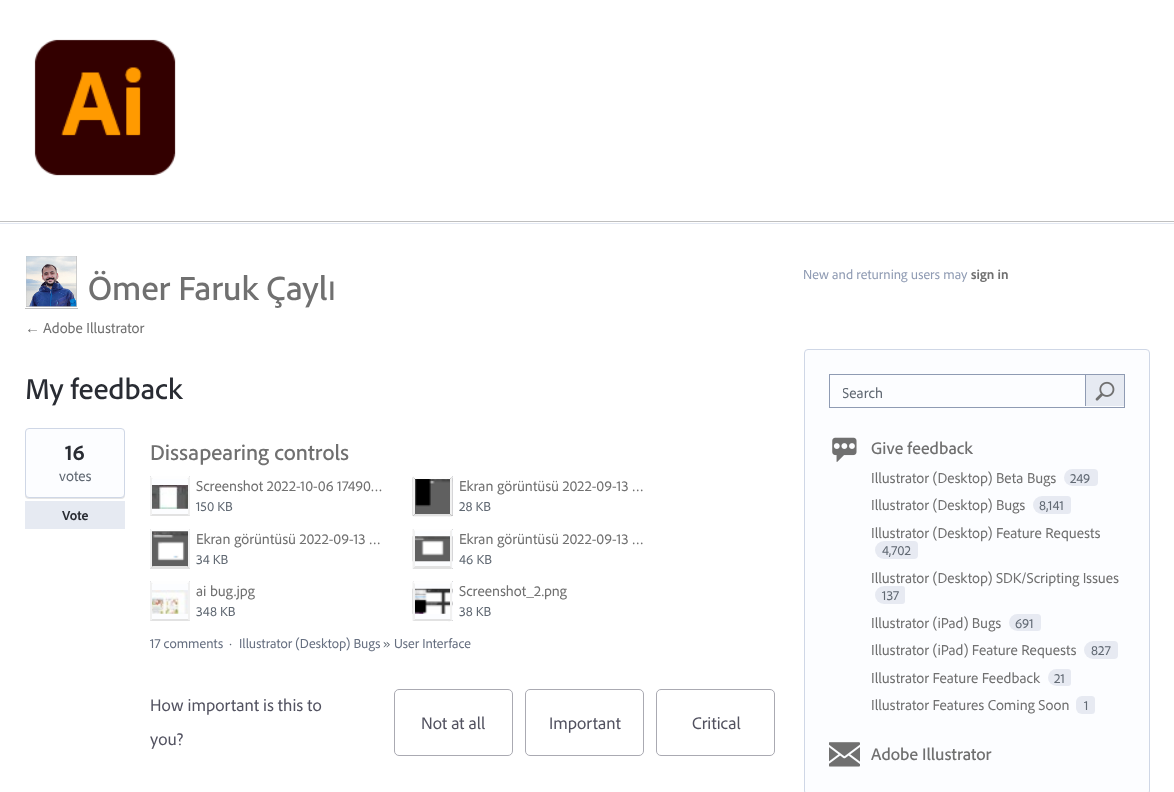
<!DOCTYPE html>
<meta charset="utf-8">
<style>body { margin: 0 } canvas { display: block }</style>
<canvas id="canvas" width="1174" height="792"></canvas>
<img id="img1" src="images/1.png" hidden>
<img id="img2" src="images/2.png" hidden>
<img id="img3" src="images/3.png" hidden>
<img id="img4" src="images/4.png" hidden>
<img id="img5" src="images/5.png" hidden>
<img id="img6" src="images/6.png" hidden>
<img id="img7" src="images/7.png" hidden>
<img id="img8" src="images/8.png" hidden>
<img id="img9" src="images/9.png" hidden>
<img id="img10" src="images/10.png" hidden>
<img id="img11" src="images/11.png" hidden>
<script>
window.onload = function () {
    const canvas = document.getElementById('canvas');
    const context = canvas.getContext('2d');
    context.miterLimit = 4;
    context.fontKerning = 'normal';

    context.fillStyle = 'rgb(255, 255, 255)';
    context.fillRect(0, 0, 1174, 792);
    context.fillStyle = 'rgb(191, 191, 191)';
    context.fillRect(0, 221, 1174, 1);
    context.drawImage(document.getElementById('img1'), 34, 39, 142, 137);
    context.fillStyle = 'rgb(227, 232, 242)';
    context.fillRect(0, 223, 1174, 1);
    context.fillStyle = 'rgba(0, 0, 0, 0.25)';
    context.filter = 'blur(0.5px)';
    context.beginPath();
    context.rect(25, 256, 53, 53);
    context.fill();
    context.filter = 'none';
    context.strokeStyle = 'rgb(255, 255, 255)';
    context.strokeRect(25.5, 255.5, 52, 52);
    context.drawImage(document.getElementById('img2'), 26, 256, 51, 51);
    context.fillStyle = 'rgba(0, 0, 0, 0.1)';
    context.filter = 'blur(0.5px)';
    context.beginPath();
    context.roundRect(25, 429, 100, 70, 4);
    context.fill();
    context.filter = 'none';
    context.fillStyle = 'rgb(252, 253, 255)';
    context.beginPath();
    context.roundRect(25.5, 428.5, 99, 69, 3.5);
    context.fill();
    context.strokeStyle = 'rgb(207, 215, 230)';
    context.stroke();
    context.fillStyle = 'rgb(230, 234, 242)';
    context.fillRect(25, 501, 100, 28);
    context.fillStyle = 'rgba(0, 0, 0, 0.75)';
    context.filter = 'blur(0.5px)';
    context.beginPath();
    context.roundRect(150, 476, 40, 40, 1);
    context.fill();
    context.filter = 'none';
    context.fillStyle = 'rgb(252, 253, 255)';
    context.beginPath();
    context.roundRect(150, 476, 40, 40, 1);
    context.fill();
    context.drawImage(document.getElementById('img3'), 152, 485, 36, 24);
    context.fillStyle = 'rgb(254, 254, 254)';
    context.beginPath();
    context.moveTo(150.5, 476.5);
    context.lineTo(151, 476);
    context.lineTo(189, 476);
    context.lineTo(189.5, 476.5);
    context.lineTo(187, 479);
    context.lineTo(153, 479);
    context.closePath();
    context.fill();
    context.fillStyle = 'rgb(241, 241, 241)';
    context.beginPath();
    context.moveTo(190, 515);
    context.lineTo(190, 478);
    context.lineTo(189.5, 476.5);
    context.lineTo(187, 479);
    context.lineTo(188, 479);
    context.lineTo(188, 514);
    context.lineTo(189.5, 516);
    context.closePath();
    context.fill();
    context.fillStyle = 'rgb(226, 226, 226)';
    context.beginPath();
    context.moveTo(189.5, 516);
    context.lineTo(150.5, 516);
    context.lineTo(152, 514);
    context.lineTo(188, 514);
    context.closePath();
    context.fill();
    context.fillStyle = 'rgb(241, 241, 241)';
    context.beginPath();
    context.moveTo(152, 479);
    context.lineTo(153, 479);
    context.lineTo(150.5, 476.5);
    context.lineTo(150, 478);
    context.lineTo(150, 515);
    context.bezierCurveTo(150, 515.5, 150, 515.5, 150.5, 516);
    context.lineTo(152, 514);
    context.closePath();
    context.fill();
    context.fillStyle = 'rgba(0, 0, 0, 0.75)';
    context.filter = 'blur(0.5px)';
    context.beginPath();
    context.roundRect(413, 476, 40, 40, 1);
    context.fill();
    context.filter = 'none';
    context.fillStyle = 'rgb(252, 253, 255)';
    context.beginPath();
    context.roundRect(413, 476, 40, 40, 1);
    context.fill();
    context.drawImage(document.getElementById('img4'), 412, 477, 41, 40);
    context.fillStyle = 'rgb(254, 254, 254)';
    context.beginPath();
    context.moveTo(413, 476.5);
    context.lineTo(413, 476);
    context.lineTo(451.5, 476);
    context.lineTo(452, 477);
    context.lineTo(450, 479);
    context.lineTo(415, 479);
    context.closePath();
    context.fill();
    context.fillStyle = 'rgb(241, 241, 241)';
    context.beginPath();
    context.moveTo(452, 477);
    context.lineTo(452, 515.5);
    context.lineTo(450, 514);
    context.lineTo(450, 479);
    context.closePath();
    context.fill();
    context.fillStyle = 'rgb(226, 226, 226)';
    context.beginPath();
    context.moveTo(452, 515.5);
    context.bezierCurveTo(452, 516.5, 449, 516, 438.5, 516);
    context.lineTo(413, 516);
    context.lineTo(415, 514);
    context.lineTo(450, 514);
    context.closePath();
    context.fill();
    context.fillStyle = 'rgb(241, 241, 241)';
    context.beginPath();
    context.moveTo(415, 479);
    context.lineTo(415, 514);
    context.lineTo(413, 516);
    context.lineTo(412.5, 516);
    context.lineTo(412.5, 477);
    context.lineTo(413, 476.5);
    context.closePath();
    context.fill();
    context.fillStyle = 'rgba(0, 0, 0, 0.75)';
    context.filter = 'blur(0.5px)';
    context.beginPath();
    context.roundRect(150, 529, 40, 40, 1);
    context.fill();
    context.filter = 'none';
    context.fillStyle = 'rgb(252, 253, 255)';
    context.beginPath();
    context.roundRect(150, 529, 40, 40, 1);
    context.fill();
    context.drawImage(document.getElementById('img5'), 151, 531, 38, 37);
    context.fillStyle = 'rgb(254, 254, 254)';
    context.beginPath();
    context.moveTo(151, 529);
    context.lineTo(150.5, 529);
    context.lineTo(152, 531);
    context.lineTo(188, 531);
    context.lineTo(189.5, 529);
    context.lineTo(189, 529);
    context.closePath();
    context.fill();
    context.fillStyle = 'rgb(241, 241, 241)';
    context.beginPath();
    context.moveTo(189.5, 529);
    context.lineTo(190, 530);
    context.lineTo(190, 568);
    context.lineTo(189.5, 568.5);
    context.lineTo(187, 566);
    context.lineTo(188, 566);
    context.lineTo(188, 531);
    context.closePath();
    context.fill();
    context.fillStyle = 'rgb(226, 226, 226)';
    context.beginPath();
    context.moveTo(151, 569);
    context.lineTo(150.5, 568.5);
    context.lineTo(153, 566);
    context.lineTo(187, 566);
    context.lineTo(189.5, 568.5);
    context.lineTo(189, 569);
    context.closePath();
    context.fill();
    context.fillStyle = 'rgb(241, 241, 241)';
    context.beginPath();
    context.moveTo(152, 531);
    context.lineTo(150.5, 529);
    context.lineTo(150, 530);
    context.lineTo(150, 568);
    context.lineTo(150.5, 568.5);
    context.lineTo(153, 566);
    context.lineTo(152, 566);
    context.closePath();
    context.fill();
    context.fillStyle = 'rgba(0, 0, 0, 0.75)';
    context.filter = 'blur(0.5px)';
    context.beginPath();
    context.roundRect(413, 529, 40, 40, 1);
    context.fill();
    context.filter = 'none';
    context.fillStyle = 'rgb(252, 253, 255)';
    context.beginPath();
    context.roundRect(413, 529, 40, 40, 1);
    context.fill();
    context.drawImage(document.getElementById('img6'), 412, 536, 41, 26);
    context.fillStyle = 'rgb(254, 254, 254)';
    context.beginPath();
    context.moveTo(414, 529);
    context.lineTo(413, 529);
    context.lineTo(415, 531);
    context.lineTo(450, 531);
    context.lineTo(452, 529.5);
    context.lineTo(451, 529);
    context.closePath();
    context.fill();
    context.fillStyle = 'rgb(241, 241, 241)';
    context.beginPath();
    context.moveTo(452, 568);
    context.lineTo(452, 529.5);
    context.lineTo(450, 531);
    context.lineTo(450, 566);
    context.closePath();
    context.fill();
    context.fillStyle = 'rgb(226, 226, 226)';
    context.beginPath();
    context.moveTo(413, 569);
    context.lineTo(412.5, 568.5);
    context.lineTo(415, 566);
    context.lineTo(450, 566);
    context.lineTo(452, 568);
    context.lineTo(451.5, 569);
    context.closePath();
    context.fill();
    context.fillStyle = 'rgb(241, 241, 241)';
    context.beginPath();
    context.moveTo(412.5, 529);
    context.lineTo(413, 529);
    context.lineTo(415, 531);
    context.lineTo(415, 566);
    context.lineTo(412.5, 568.5);
    context.closePath();
    context.fill();
    context.fillStyle = 'rgba(0, 0, 0, 0.75)';
    context.filter = 'blur(0.5px)';
    context.beginPath();
    context.roundRect(150, 581, 40, 40, 1);
    context.fill();
    context.filter = 'none';
    context.fillStyle = 'rgb(252, 253, 255)';
    context.beginPath();
    context.roundRect(150, 581, 40, 40, 1);
    context.fill();
    context.drawImage(document.getElementById('img7'), 152, 590, 36, 24);
    context.fillStyle = 'rgb(254, 254, 254)';
    context.beginPath();
    context.moveTo(150.5, 581.5);
    context.lineTo(151, 581);
    context.lineTo(189, 581);
    context.lineTo(189.5, 581.5);
    context.lineTo(187, 584);
    context.lineTo(153, 584);
    context.closePath();
    context.fill();
    context.fillStyle = 'rgb(241, 241, 241)';
    context.beginPath();
    context.moveTo(190, 620);
    context.lineTo(190, 582);
    context.lineTo(189.5, 581.5);
    context.lineTo(187, 584);
    context.lineTo(188, 584);
    context.lineTo(188, 619);
    context.lineTo(189.5, 621);
    context.closePath();
    context.fill();
    context.fillStyle = 'rgb(226, 226, 226)';
    context.beginPath();
    context.moveTo(189.5, 621);
    context.lineTo(150.5, 621);
    context.lineTo(152, 619);
    context.lineTo(188, 619);
    context.closePath();
    context.fill();
    context.fillStyle = 'rgb(241, 241, 241)';
    context.beginPath();
    context.moveTo(152, 584);
    context.lineTo(153, 584);
    context.lineTo(150.5, 581.5);
    context.lineTo(150, 582);
    context.lineTo(150, 620);
    context.lineTo(150.5, 621);
    context.lineTo(152, 619);
    context.closePath();
    context.fill();
    context.fillStyle = 'rgba(0, 0, 0, 0.75)';
    context.filter = 'blur(0.5px)';
    context.beginPath();
    context.roundRect(413, 581, 40, 40, 1);
    context.fill();
    context.filter = 'none';
    context.fillStyle = 'rgb(252, 253, 255)';
    context.beginPath();
    context.roundRect(413, 581, 40, 40, 1);
    context.fill();
    context.drawImage(document.getElementById('img8'), 412, 588, 41, 26);
    context.fillStyle = 'rgb(254, 254, 254)';
    context.beginPath();
    context.moveTo(412.5, 581.5);
    context.lineTo(451.5, 581);
    context.lineTo(452, 582);
    context.lineTo(450, 584);
    context.lineTo(415, 584);
    context.closePath();
    context.fill();
    context.fillStyle = 'rgb(241, 241, 241)';
    context.beginPath();
    context.moveTo(452, 582);
    context.lineTo(452, 620.5);
    context.lineTo(450, 619);
    context.lineTo(450, 584);
    context.closePath();
    context.fill();
    context.fillStyle = 'rgb(226, 226, 226)';
    context.beginPath();
    context.moveTo(452, 620.5);
    context.bezierCurveTo(452, 621.5, 449, 621, 438.5, 621);
    context.lineTo(413, 621);
    context.lineTo(415, 619);
    context.lineTo(450, 619);
    context.closePath();
    context.fill();
    context.fillStyle = 'rgb(241, 241, 241)';
    context.beginPath();
    context.moveTo(415, 584);
    context.lineTo(415, 619);
    context.lineTo(413, 621);
    context.lineTo(412.5, 621);
    context.lineTo(412.5, 581.5);
    context.closePath();
    context.fill();
    context.beginPath();
    context.roundRect(394.5, 689.5, 118, 66, 4.5);
    context.strokeStyle = 'rgb(170, 170, 178)';
    context.stroke();
    context.beginPath();
    context.roundRect(525.5, 689.5, 118, 66, 4.5);
    context.stroke();
    context.beginPath();
    context.roundRect(656.5, 689.5, 118, 66, 4.5);
    context.stroke();
    context.fillStyle = 'rgb(252, 253, 255)';
    context.beginPath();
    context.roundRect(804.5, 349.5, 345, 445, 3.5);
    context.fill();
    context.strokeStyle = 'rgb(207, 215, 230)';
    context.stroke();
    context.strokeStyle = 'rgb(143, 155, 179)';
    context.strokeRect(829.5, 374.5, 295, 33);
    context.fillStyle = 'rgb(230, 234, 242)';
    context.fillRect(1086, 375, 38, 31);
    context.fillStyle = 'rgb(143, 155, 179)';
    context.fillRect(1085, 375, 1, 31);
    context.drawImage(document.getElementById('img9'), 1095, 381, 20, 20);
    context.drawImage(document.getElementById('img10'), 832, 437, 25, 25);
    context.fillStyle = 'rgb(231, 234, 242)';
    context.beginPath();
    context.roundRect(1064, 469, 26, 17, [8.5, 0, 0, 8.5]);
    context.fill();
    context.beginPath();
    context.roundRect(1090, 469, 8, 17, [0, 4, 4, 0]);
    context.fill();
    context.beginPath();
    context.roundRect(1033, 496, 31, 18, [9, 0, 0, 9]);
    context.fill();
    context.beginPath();
    context.roundRect(1064, 496, 7, 18, [0, 3.5, 3.5, 0]);
    context.fill();
    context.beginPath();
    context.roundRect(1009, 614, 25, 17, [8.5, 0, 0, 8.5]);
    context.fill();
    context.beginPath();
    context.roundRect(1034, 614, 7, 17, [0, 3.5, 3.5, 0]);
    context.fill();
    context.beginPath();
    context.roundRect(1084, 641, 26, 18, [9, 0, 0, 9]);
    context.fill();
    context.beginPath();
    context.roundRect(1110, 641, 8, 18, [0, 4, 4, 0]);
    context.fill();
    context.beginPath();
    context.roundRect(1048, 669, 17, 17, [8.5, 0, 0, 8.5]);
    context.fill();
    context.beginPath();
    context.roundRect(1065, 669, 6, 17, [0, 3, 3, 0]);
    context.fill();
    context.beginPath();
    context.roundRect(1076, 696, 12, 18, [6, 0, 0, 6]);
    context.fill();
    context.beginPath();
    context.roundRect(1088, 696, 7, 18, [0, 3.5, 3.5, 0]);
    context.fill();
    context.drawImage(document.getElementById('img11'), 829, 742, 31, 25);
    context.font = '500 35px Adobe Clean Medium';
    context.fillStyle = 'rgb(112, 112, 112)';
    context.fillText('Ömer Faruk Çayl', 88, 300);
    context.font = '35px Liberation Sans';
    context.fillText('ı', 327, 300);
    context.font = '15px Liberation Sans';
    context.fillText('←', 25, 333);
    context.font = '15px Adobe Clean';
    context.fillText('Adobe Illustrator', 43, 333);
    context.font = '500 30px Adobe Clean Medium';
    context.fillStyle = 'rgb(41, 44, 51)';
    context.fillText('My feedback', 25, 399);
    context.font = 'bold 22.5px Adobe Clean';
    context.fillText('16', 65, 460);
    context.font = '15px Adobe Clean';
    context.fillStyle = 'rgb(97, 105, 115)';
    context.fillText('votes', 59, 481);
    context.font = 'bold 13.75px Adobe Clean';
    context.fillStyle = 'rgb(41, 44, 51)';
    context.fillText('Vote', 62, 520);
    context.font = '500 22.5px Adobe Clean Medium';
    context.fillStyle = 'rgb(112, 112, 112)';
    context.fillText('Dissapearing controls', 150, 460);
    context.font = '15px Adobe Clean';
    context.fillText('Screenshot 2022-10-06 17490…', 196, 491);
    context.font = '13.75px Adobe Clean';
    context.fillStyle = 'rgb(97, 105, 115)';
    context.fillText('150 KB', 196, 511);
    context.font = '15px Adobe Clean';
    context.fillStyle = 'rgb(112, 112, 112)';
    context.fillText('Ekran görüntüsü 2022-09-13 …', 459, 491);
    context.font = '13.75px Adobe Clean';
    context.fillStyle = 'rgb(97, 105, 115)';
    context.fillText('28 KB', 459, 511);
    context.font = '15px Adobe Clean';
    context.fillStyle = 'rgb(112, 112, 112)';
    context.fillText('Ekran görüntüsü 2022-09-13 …', 196, 544);
    context.font = '13.75px Adobe Clean';
    context.fillStyle = 'rgb(97, 105, 115)';
    context.fillText('34 KB', 196, 564);
    context.font = '15px Adobe Clean';
    context.fillStyle = 'rgb(112, 112, 112)';
    context.fillText('Ekran görüntüsü 2022-09-13 …', 459, 544);
    context.font = '13.75px Adobe Clean';
    context.fillStyle = 'rgb(97, 105, 115)';
    context.fillText('46 KB', 459, 564);
    context.font = '15px Adobe Clean';
    context.fillStyle = 'rgb(112, 112, 112)';
    context.fillText('ai bug.jpg', 196, 596);
    context.font = '13.75px Adobe Clean';
    context.fillStyle = 'rgb(97, 105, 115)';
    context.fillText('348 KB', 196, 616);
    context.font = '15px Adobe Clean';
    context.fillStyle = 'rgb(112, 112, 112)';
    context.fillText('Screenshot_2.png', 459, 596);
    context.font = '13.75px Adobe Clean';
    context.fillStyle = 'rgb(97, 105, 115)';
    context.fillText('38 KB', 459, 616);
    context.fillStyle = 'rgb(102, 111, 128)';
    context.fillText('17 comments', 150, 648);
    context.fillStyle = 'rgb(97, 105, 115)';
    context.fillText('·', 229, 648);
    context.fillStyle = 'rgb(102, 111, 128)';
    context.fillText('Illustrator (Desktop) Bugs', 239, 648);
    context.fillStyle = 'rgb(97, 105, 115)';
    context.fillText('»', 383, 648);
    context.fillStyle = 'rgb(102, 111, 128)';
    context.fillText('User Interface', 394, 648);
    context.font = '17.5px Adobe Clean';
    context.fillStyle = 'rgb(82, 82, 96)';
    context.fillText('How important is this to', 150, 711);
    context.fillText('you?', 150, 745);
    context.fillText('Not at all', 421, 729);
    context.fillText('Important', 549, 729);
    context.fillText('Critical', 692, 729);
    context.font = '13.75px Adobe Clean';
    context.fillStyle = 'rgb(143, 155, 179)';
    context.fillText('New and returning users may', 803, 279);
    context.font = 'bold 13.75px Adobe Clean';
    context.fillStyle = 'rgb(112, 112, 112)';
    context.fillText('sign in', 971, 279);
    context.save();
    context.beginPath();
    context.rect(843, 383, 206, 17);
    context.clip();
    context.font = '15px Adobe Clean';
    context.fillStyle = 'rgb(97, 105, 115)';
    context.fillText('Search', 842, 398);
    context.restore();
    context.font = '500 17.5px Adobe Clean Medium';
    context.fillText('Give feedback', 871, 454);
    context.font = '15px Adobe Clean';
    context.fillText('Illustrator (Desktop) Beta Bugs', 871, 483);
    context.font = '13.75px Adobe Clean';
    context.fillStyle = 'rgb(97, 105, 115)';
    context.fillText('249', 1070, 483);
    context.font = '15px Adobe Clean';
    context.fillStyle = 'rgb(112, 112, 112)';
    context.fillText('Illustrator (Desktop) Bugs', 871, 510);
    context.font = '13.75px Adobe Clean';
    context.fillStyle = 'rgb(97, 105, 115)';
    context.fillText('8,141', 1039, 510);
    context.font = '15px Adobe Clean';
    context.fillStyle = 'rgb(112, 112, 112)';
    context.fillText('Illustrator (Desktop) Feature Requests', 871, 538);
    context.fillStyle = 'rgb(231, 234, 242)';
    context.beginPath();
    context.roundRect(875, 541, 35, 18, [9, 0, 0, 9]);
    context.fill();
    context.beginPath();
    context.roundRect(910, 541, 8, 18, [0, 4, 4, 0]);
    context.fill();
    context.font = '13.75px Adobe Clean';
    context.fillStyle = 'rgb(97, 105, 115)';
    context.fillText('4,702', 882, 555);
    context.font = '15px Adobe Clean';
    context.fillStyle = 'rgb(112, 112, 112)';
    context.fillText('Illustrator (Desktop) SDK/Scripting Issues', 871, 583);
    context.fillStyle = 'rgb(231, 234, 242)';
    context.beginPath();
    context.roundRect(875, 586, 24, 18, [9, 0, 0, 9]);
    context.fill();
    context.font = '13.75px Adobe Clean';
    context.fillStyle = 'rgb(97, 105, 115)';
    context.fillText('137', 882, 600);
    context.fillStyle = 'rgb(231, 234, 242)';
    context.beginPath();
    context.roundRect(899, 586, 6, 18, [0, 3, 3, 0]);
    context.fill();
    context.font = '15px Adobe Clean';
    context.fillStyle = 'rgb(112, 112, 112)';
    context.fillText('Illustrator (iPad) Bugs', 871, 628);
    context.font = '13.75px Adobe Clean';
    context.fillStyle = 'rgb(97, 105, 115)';
    context.fillText('691', 1015, 628);
    context.font = '15px Adobe Clean';
    context.fillStyle = 'rgb(112, 112, 112)';
    context.fillText('Illustrator (iPad) Feature Requests', 871, 655);
    context.font = '13.75px Adobe Clean';
    context.fillStyle = 'rgb(97, 105, 115)';
    context.fillText('827', 1091, 655);
    context.font = '15px Adobe Clean';
    context.fillStyle = 'rgb(112, 112, 112)';
    context.fillText('Illustrator Feature Feedback', 871, 683);
    context.font = '13.75px Adobe Clean';
    context.fillStyle = 'rgb(97, 105, 115)';
    context.fillText('21', 1054, 683);
    context.font = '15px Adobe Clean';
    context.fillStyle = 'rgb(112, 112, 112)';
    context.fillText('Illustrator Features Coming Soon', 871, 710);
    context.font = '13.75px Adobe Clean';
    context.fillStyle = 'rgb(97, 105, 115)';
    context.fillText('1', 1084, 710);
    context.font = '500 17.5px Adobe Clean Medium';
    context.fillStyle = 'rgb(112, 112, 112)';
    context.fillText('Adobe Illustrator', 871, 760);
};
</script>
